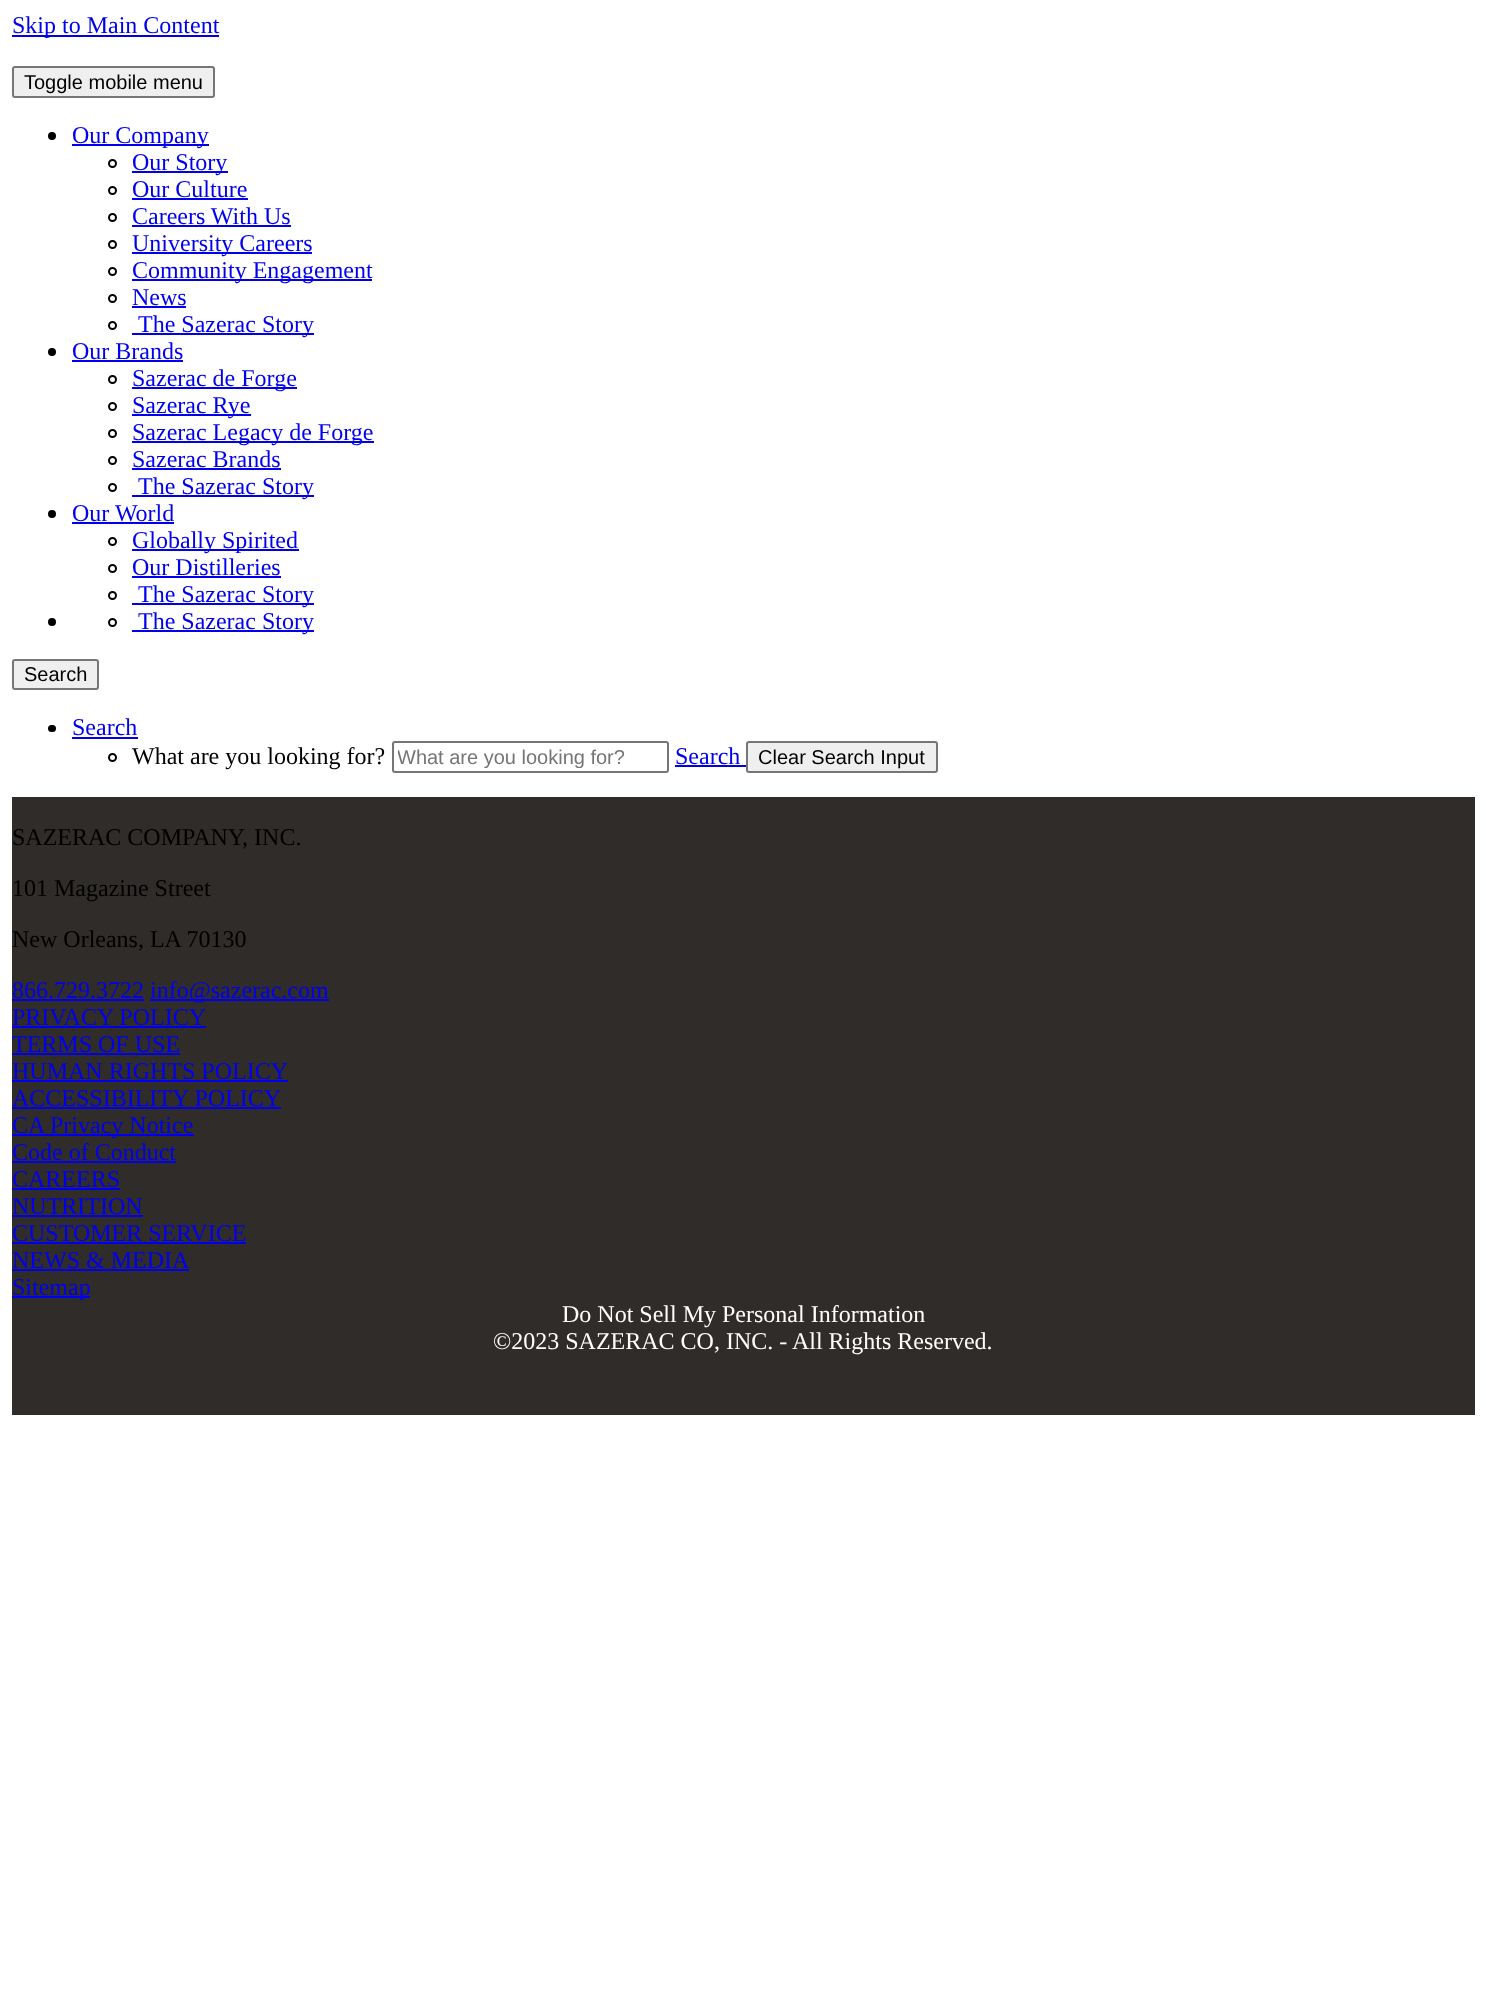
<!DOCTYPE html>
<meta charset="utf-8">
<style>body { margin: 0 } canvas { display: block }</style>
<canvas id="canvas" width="1486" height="1990"></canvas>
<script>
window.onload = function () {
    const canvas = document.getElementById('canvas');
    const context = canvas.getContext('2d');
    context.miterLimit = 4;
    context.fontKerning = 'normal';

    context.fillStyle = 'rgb(255, 255, 255)';
    context.fillRect(0, 0, 1486, 1990);
    context.fillStyle = 'rgb(0, 0, 238)';
    context.fillRect(12, 35, 207, 2);
    context.fillStyle = 'rgb(239, 239, 239)';
    context.beginPath();
    context.roundRect(13, 67, 201, 30, 2);
    context.fill();
    context.strokeStyle = 'rgb(118, 118, 118)';
    context.lineWidth = 2;
    context.stroke();
    context.fillStyle = 'rgb(0, 0, 0)';
    context.beginPath();
    context.arc(52, 136, 4, 0, 2 * Math.PI);
    context.fill();
    context.fillStyle = 'rgb(0, 0, 238)';
    context.fillRect(72, 144, 137, 2);
    context.beginPath();
    context.arc(112.5, 163.5, 3.5, 0, 2 * Math.PI);
    context.strokeStyle = 'rgb(0, 0, 0)';
    context.stroke();
    context.fillRect(132, 171, 96, 2);
    context.beginPath();
    context.arc(112.5, 190.5, 3.5, 0, 2 * Math.PI);
    context.stroke();
    context.fillRect(132, 198, 116, 2);
    context.beginPath();
    context.arc(112.5, 217.5, 3.5, 0, 2 * Math.PI);
    context.stroke();
    context.fillRect(132, 225, 159, 2);
    context.beginPath();
    context.arc(112.5, 244.5, 3.5, 0, 2 * Math.PI);
    context.stroke();
    context.fillRect(132, 252, 180, 2);
    context.beginPath();
    context.arc(112.5, 271.5, 3.5, 0, 2 * Math.PI);
    context.stroke();
    context.fillRect(132, 279, 240, 2);
    context.beginPath();
    context.arc(112.5, 298.5, 3.5, 0, 2 * Math.PI);
    context.stroke();
    context.fillRect(132, 306, 54, 2);
    context.beginPath();
    context.arc(112.5, 325.5, 3.5, 0, 2 * Math.PI);
    context.stroke();
    context.fillRect(132, 333, 182, 2);
    context.fillStyle = 'rgb(0, 0, 0)';
    context.beginPath();
    context.arc(52, 352, 4, 0, 2 * Math.PI);
    context.fill();
    context.fillStyle = 'rgb(0, 0, 238)';
    context.fillRect(72, 360, 111, 2);
    context.beginPath();
    context.arc(112.5, 379.5, 3.5, 0, 2 * Math.PI);
    context.stroke();
    context.fillRect(132, 387, 165, 2);
    context.beginPath();
    context.arc(112.5, 406.5, 3.5, 0, 2 * Math.PI);
    context.stroke();
    context.fillRect(132, 414, 119, 2);
    context.beginPath();
    context.arc(112.5, 433.5, 3.5, 0, 2 * Math.PI);
    context.stroke();
    context.fillRect(132, 441, 242, 2);
    context.beginPath();
    context.arc(112.5, 460.5, 3.5, 0, 2 * Math.PI);
    context.stroke();
    context.fillRect(132, 468, 149, 2);
    context.beginPath();
    context.arc(112.5, 487.5, 3.5, 0, 2 * Math.PI);
    context.stroke();
    context.fillRect(132, 495, 182, 2);
    context.fillStyle = 'rgb(0, 0, 0)';
    context.beginPath();
    context.arc(52, 514, 4, 0, 2 * Math.PI);
    context.fill();
    context.fillStyle = 'rgb(0, 0, 238)';
    context.fillRect(72, 522, 102, 2);
    context.beginPath();
    context.arc(112.5, 541.5, 3.5, 0, 2 * Math.PI);
    context.stroke();
    context.fillRect(132, 549, 167, 2);
    context.beginPath();
    context.arc(112.5, 568.5, 3.5, 0, 2 * Math.PI);
    context.stroke();
    context.fillRect(132, 576, 149, 2);
    context.beginPath();
    context.arc(112.5, 595.5, 3.5, 0, 2 * Math.PI);
    context.stroke();
    context.fillRect(132, 603, 182, 2);
    context.fillStyle = 'rgb(0, 0, 0)';
    context.beginPath();
    context.arc(52, 622, 4, 0, 2 * Math.PI);
    context.fill();
    context.beginPath();
    context.arc(112.5, 622.5, 3.5, 0, 2 * Math.PI);
    context.stroke();
    context.fillStyle = 'rgb(0, 0, 238)';
    context.fillRect(132, 630, 182, 2);
    context.fillStyle = 'rgb(239, 239, 239)';
    context.beginPath();
    context.roundRect(13, 660, 85, 29, 2);
    context.fill();
    context.strokeStyle = 'rgb(118, 118, 118)';
    context.stroke();
    context.fillStyle = 'rgb(0, 0, 0)';
    context.beginPath();
    context.roundRect(48, 725, 8, 7, 3.5);
    context.fill();
    context.fillStyle = 'rgb(0, 0, 238)';
    context.fillRect(72, 737, 66, 2);
    context.beginPath();
    context.arc(112.5, 757.5, 3.5, 0, 2 * Math.PI);
    context.strokeStyle = 'rgb(0, 0, 0)';
    context.stroke();
    context.beginPath();
    context.roundRect(393, 742, 275, 30, 2);
    context.strokeStyle = 'rgb(118, 118, 118)';
    context.stroke();
    context.fillRect(675, 765, 71, 2);
    context.fillStyle = 'rgb(239, 239, 239)';
    context.beginPath();
    context.roundRect(747, 742, 190, 30, 2);
    context.fill();
    context.stroke();
    context.fillStyle = 'rgb(47, 44, 42)';
    context.fillRect(12, 797, 1463, 618);
    context.fillStyle = 'rgb(0, 0, 238)';
    context.fillRect(12, 999, 132, 2);
    context.fillRect(150, 999, 179, 2);
    context.fillRect(12, 1026, 194, 2);
    context.fillRect(12, 1053, 168, 2);
    context.fillRect(12, 1080, 276, 2);
    context.fillRect(12, 1107, 269, 2);
    context.fillRect(12, 1134, 182, 2);
    context.fillRect(12, 1161, 164, 2);
    context.fillRect(12, 1188, 108, 2);
    context.fillRect(12, 1215, 131, 2);
    context.fillRect(12, 1242, 234, 2);
    context.fillRect(12, 1269, 177, 2);
    context.fillRect(12, 1296, 78, 2);
    context.font = '24px Liberation Serif';
    context.fillText('Skip to Main Content', 12, 33);
    context.font = '20px Liberation Sans';
    context.fillStyle = 'rgb(0, 0, 0)';
    context.fillText('Toggle mobile menu', 24, 89);
    context.font = '24px Liberation Serif';
    context.fillStyle = 'rgb(0, 0, 238)';
    context.fillText('Our Company', 72, 143);
    context.fillText('Our Story', 132, 170);
    context.fillText('Our Culture', 132, 197);
    context.fillText('Careers With Us', 132, 224);
    context.fillText('University Careers', 132, 251);
    context.fillText('Community Engagement', 132, 278);
    context.fillText('News', 132, 305);
    context.fillText('The Sazerac Story', 138, 332);
    context.fillText('Our Brands', 72, 359);
    context.fillText('Sazerac de Forge', 132, 386);
    context.fillText('Sazerac Rye', 132, 413);
    context.fillText('Sazerac Legacy de Forge', 132, 440);
    context.fillText('Sazerac Brands', 132, 467);
    context.fillText('The Sazerac Story', 138, 494);
    context.fillText('Our World', 72, 521);
    context.fillText('Globally Spirited', 132, 548);
    context.fillText('Our Distilleries', 132, 575);
    context.fillText('The Sazerac Story', 138, 602);
    context.fillText('The Sazerac Story', 138, 629);
    context.font = '20px Liberation Sans';
    context.fillStyle = 'rgb(0, 0, 0)';
    context.fillText('Search', 24, 681);
    context.font = '24px Liberation Serif';
    context.fillStyle = 'rgb(0, 0, 238)';
    context.fillText('Search', 72, 735);
    context.fillStyle = 'rgb(0, 0, 0)';
    context.fillText('What are you looking for?', 132, 764);
    context.save();
    context.beginPath();
    context.rect(398, 746, 265, 22);
    context.clip();
    context.font = '20px Liberation Sans';
    context.fillStyle = 'rgb(117, 117, 117)';
    context.fillText('What are you looking for?', 397, 764);
    context.restore();
    context.fillStyle = 'rgb(0, 0, 238)';
    context.fillText('Search', 675, 764);
    context.font = '20px Liberation Sans';
    context.fillStyle = 'rgb(0, 0, 0)';
    context.fillText('Clear Search Input', 758, 764);
    context.font = '24px Liberation Serif';
    context.fillText('SAZERAC COMPANY, INC.', 12, 845);
    context.fillText('101 Magazine Street', 12, 896);
    context.fillText('New Orleans, LA 70130', 12, 947);
    context.fillStyle = 'rgb(0, 0, 238)';
    context.fillText('866.729.3722', 12, 998);
    context.fillText('info@sazerac.com', 150, 998);
    context.fillText('PRIVACY POLICY', 12, 1025);
    context.fillText('TERMS OF USE', 12, 1052);
    context.fillText('HUMAN RIGHTS POLICY', 12, 1079);
    context.fillText('ACCESSIBILITY POLICY', 12, 1106);
    context.fillText('CA Privacy Notice', 12, 1133);
    context.fillText('Code of Conduct', 12, 1160);
    context.fillText('CAREERS', 12, 1187);
    context.fillText('NUTRITION', 12, 1214);
    context.fillText('CUSTOMER SERVICE', 12, 1241);
    context.fillText('NEWS & MEDIA', 12, 1268);
    context.fillText('Sitemap', 12, 1295);
    context.fillStyle = 'rgb(255, 255, 255)';
    context.fillText('Do Not Sell My Personal Information', 562, 1322);
    context.fillText('©2023 SAZERAC CO, INC. - All Rights Reserved.', 493, 1349);
};
</script>
